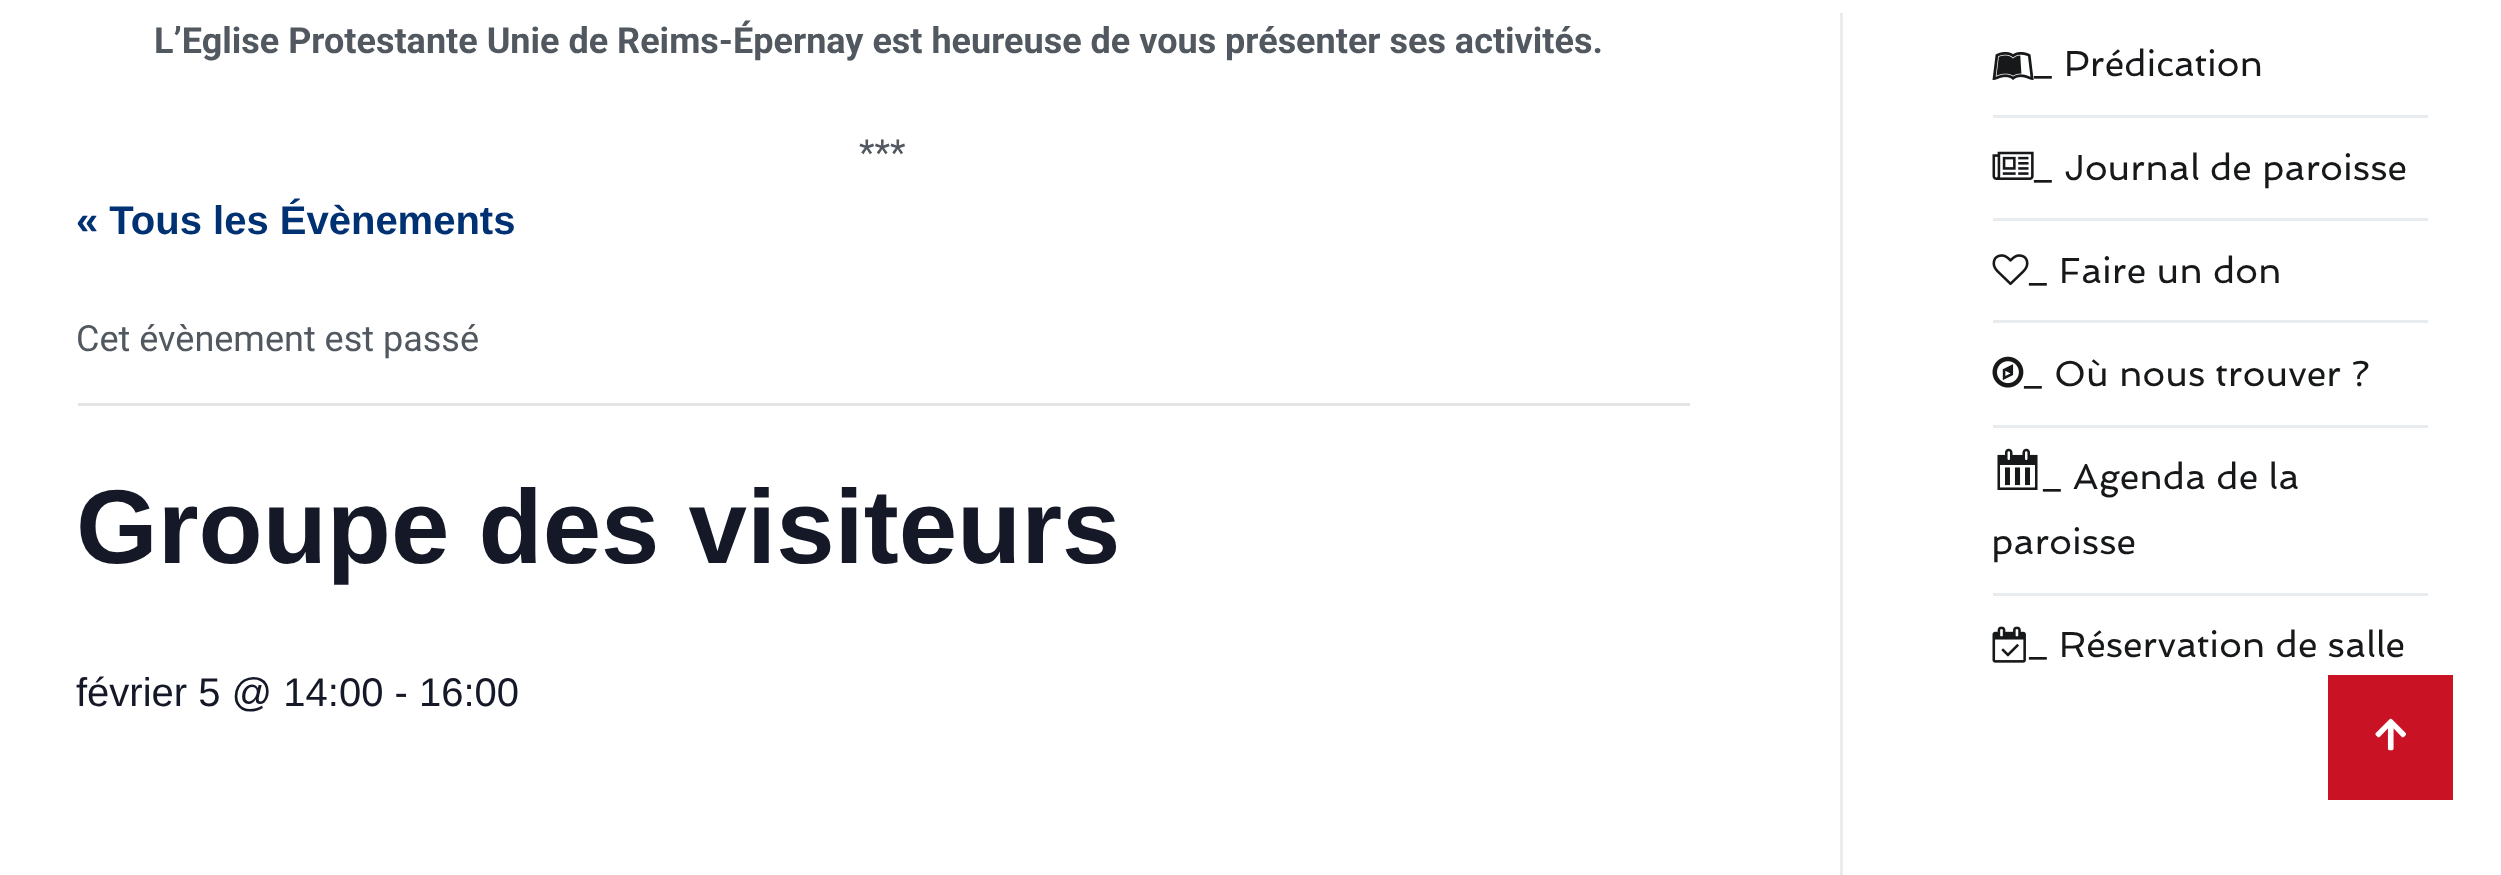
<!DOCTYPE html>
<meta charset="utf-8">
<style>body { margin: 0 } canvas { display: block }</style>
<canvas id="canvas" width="2501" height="875"></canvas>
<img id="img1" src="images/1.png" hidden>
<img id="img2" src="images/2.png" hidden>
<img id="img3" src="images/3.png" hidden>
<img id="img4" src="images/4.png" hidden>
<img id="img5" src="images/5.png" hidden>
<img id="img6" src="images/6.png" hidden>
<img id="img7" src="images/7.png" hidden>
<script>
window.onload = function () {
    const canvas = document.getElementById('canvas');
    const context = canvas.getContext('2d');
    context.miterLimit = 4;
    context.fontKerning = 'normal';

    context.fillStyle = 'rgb(255, 255, 255)';
    context.fillRect(0, 0, 2501, 875);
    context.fillStyle = 'rgb(228, 228, 228)';
    context.fillRect(78, 403, 1612, 3);
    context.fillStyle = 'rgb(233, 236, 239)';
    context.fillRect(1840, 13, 3, 862);
    context.fillRect(1993, 115, 435, 3);
    context.drawImage(document.getElementById('img1'), 1992, 52, 42, 29);
    context.fillRect(1993, 218, 435, 3);
    context.drawImage(document.getElementById('img2'), 1992, 151, 42, 29);
    context.fillRect(1993, 320, 435, 3);
    context.drawImage(document.getElementById('img3'), 1992, 254, 37, 32);
    context.fillRect(1993, 425, 435, 3);
    context.drawImage(document.getElementById('img4'), 1992, 356, 32, 32);
    context.fillRect(1993, 593, 435, 3);
    context.drawImage(document.getElementById('img5'), 1997, 448, 41, 42);
    context.drawImage(document.getElementById('img6'), 1992, 626, 34, 37);
    context.fillStyle = 'rgb(201, 18, 36)';
    context.fillRect(2328, 675, 125, 125);
    context.drawImage(document.getElementById('img7'), 2375, 718, 31, 33);
    context.font = 'bold 36px Roboto';
    context.fillStyle = 'rgb(81, 88, 95)';
    context.fillText('L’Eglise Protestante Unie de Reims-Épernay est heureuse de vous présenter ses activités.', 154, 53);
    context.font = '36px Roboto';
    context.fillText('***', 859, 165);
    context.font = 'bold 40px Liberation Sans';
    context.fillStyle = 'rgb(0, 49, 114)';
    context.fillText('« Tous les Évènements', 76, 234);
    context.font = '36px Roboto';
    context.fillStyle = 'rgb(81, 88, 95)';
    context.fillText('Cet évènement est passé', 76, 351);
    context.font = 'bold 105px Liberation Sans';
    context.fillStyle = 'rgb(20, 24, 39)';
    context.fillText('Groupe des visiteurs', 76, 563);
    context.font = '40px Liberation Sans';
    context.fillText('février 5 @ 14:00 - 16:00', 76, 706);
    context.font = '36px Spinnaker';
    context.fillStyle = 'rgb(22, 24, 26)';
    context.fillText('_ Prédication', 2032, 76);
    context.fillText('_ Journal de paroisse', 2032, 180);
    context.fillText('_ Faire un don', 2027, 283);
    context.fillText('_ Où nous trouver ?', 2022, 386);
    context.fillText('_ Agenda de la', 2041, 489);
    context.fillText('paroisse', 1991, 554);
    context.fillText('_ Réservation de salle', 2027, 657);
};
</script>
